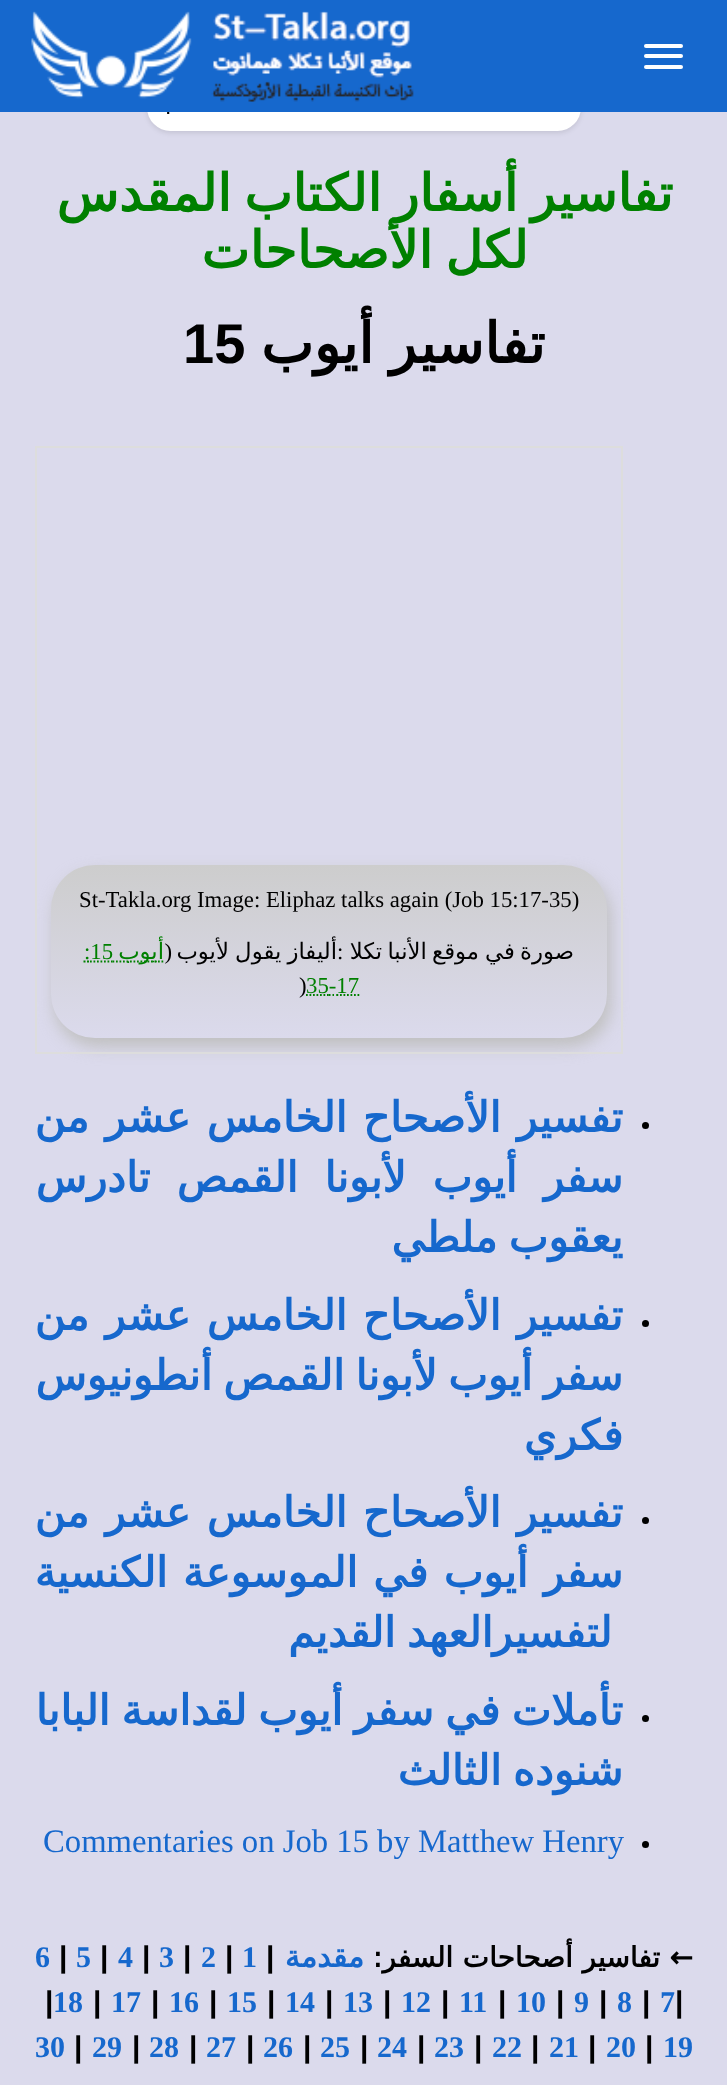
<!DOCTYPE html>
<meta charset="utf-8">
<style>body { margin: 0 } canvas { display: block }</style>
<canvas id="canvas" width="727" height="2085"></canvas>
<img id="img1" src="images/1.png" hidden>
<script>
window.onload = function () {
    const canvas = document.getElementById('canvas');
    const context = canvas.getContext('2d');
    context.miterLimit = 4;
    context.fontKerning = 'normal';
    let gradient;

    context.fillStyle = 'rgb(219, 218, 236)';
    context.fillRect(0, 0, 727, 2085);
    context.fillStyle = 'rgba(0, 0, 0, 0.1)';
    context.filter = 'blur(2.5px)';
    context.beginPath();
    context.roundRect(147, 86, 434, 47, 23.5);
    context.fill();
    context.filter = 'none';
    context.fillStyle = 'rgb(255, 255, 255)';
    context.beginPath();
    context.roundRect(147, 84, 434, 47, 23.5);
    context.fill();
    context.fillStyle = 'rgb(221, 221, 221)';
    context.fillRect(35, 446, 588, 2);
    context.fillStyle = 'rgb(192, 192, 192)';
    context.filter = 'blur(8px)';
    context.beginPath();
    context.roundRect(54, 873, 557, 174, 44);
    context.fill();
    context.filter = 'none';
    context.fillStyle = 'rgb(221, 221, 221)';
    context.fillRect(621, 446, 2, 608);
    context.fillRect(35, 1052, 588, 2);
    context.fillRect(35, 446, 2, 608);
    gradient = context.createLinearGradient(329, 865, 329, 1038);
    gradient.addColorStop(0, 'rgb(205, 205, 205)');
    gradient.addColorStop(1, 'rgb(219, 218, 236)');
    context.fillStyle = gradient;
    context.beginPath();
    context.roundRect(51, 865, 556, 173, 44);
    context.fill();
    context.beginPath();
    context.moveTo(90, 961.5);
    context.lineTo(112.5, 961.5);
    context.strokeStyle = 'rgb(0, 128, 0)';
    context.lineWidth = 1.8;
    context.setLineDash([1.75, 1.75]);
    context.stroke();
    context.beginPath();
    context.moveTo(112.5, 961.5);
    context.lineTo(164, 961.5);
    context.stroke();
    context.beginPath();
    context.moveTo(83.5, 961.5);
    context.lineTo(85.5, 961.5);
    context.moveTo(87, 961.5);
    context.lineTo(89, 961.5);
    context.setLineDash([]);
    context.stroke();
    context.beginPath();
    context.moveTo(329, 995);
    context.lineTo(330.5, 995);
    context.moveTo(332.5, 995);
    context.lineTo(334, 995);
    context.moveTo(336, 995);
    context.lineTo(336.5, 995);
    context.stroke();
    context.beginPath();
    context.moveTo(336.5, 995);
    context.lineTo(359.5, 995);
    context.setLineDash([1.75, 1.75]);
    context.stroke();
    context.beginPath();
    context.moveTo(306, 995);
    context.lineTo(329, 995);
    context.stroke();
    context.fillStyle = 'rgb(0, 0, 0)';
    context.beginPath();
    context.arc(645.5, 1125.5, 3.5, 0, 2 * Math.PI);
    context.fill();
    context.beginPath();
    context.arc(645.5, 1323.5, 3.5, 0, 2 * Math.PI);
    context.fill();
    context.beginPath();
    context.arc(645.5, 1520.5, 3.5, 0, 2 * Math.PI);
    context.fill();
    context.beginPath();
    context.arc(645.5, 1718.5, 3.5, 0, 2 * Math.PI);
    context.fill();
    context.beginPath();
    context.arc(645.5, 1844.5, 3.5, 0, 2 * Math.PI);
    context.fill();
    context.font = '22.75px Liberation Sans';
    context.fillText('.', 165, 114);
    context.fillStyle = 'rgb(22, 104, 205)';
    context.fillRect(0, 0, 727, 112);
    context.fillStyle = 'rgb(255, 255, 255)';
    context.beginPath();
    context.roundRect(644, 65, 39, 4, 2);
    context.fill();
    context.beginPath();
    context.roundRect(644, 54, 39, 4, 2);
    context.fill();
    context.beginPath();
    context.roundRect(644, 44, 39, 4, 2);
    context.fill();
    context.drawImage(document.getElementById('img1'), 31, 11, 383, 91);
    context.wordSpacing = '-3.5px';
    context.direction = 'rtl';
    context.font = 'bold 51.25px DejaVu Sans';
    context.fillStyle = 'rgb(0, 128, 0)';
    context.fillText('تفاسير أسفار الكتاب المقدس', 673, 211);
    context.fillText('لكل الأصحاحات', 528, 268);
    context.wordSpacing = '-2px';
    context.font = 'bold 56px DejaVu Sans';
    context.fillStyle = 'rgb(0, 0, 0)';
    context.fillText('تفاسير أيوب', 545, 363);
    context.wordSpacing = '0px';
    context.direction = 'ltr';
    context.font = 'bold 56px Liberation Sans';
    context.fillText('15', 183, 363);
    context.font = '22.75px Liberation Serif';
    context.fillText('St-Takla.org Image: Eliphaz talks again (Job 15:17-35)', 79, 907);
    context.wordSpacing = '-2px';
    context.direction = 'rtl';
    context.font = '22.75px DejaVu Sans';
    context.fillText('صورة في', 574, 959);
    context.fillText('موقع الأنبا تكلا', 479, 959);
    context.wordSpacing = '0px';
    context.direction = 'ltr';
    context.font = '22.75px Liberation Serif';
    context.fillText(':', 337, 959);
    context.wordSpacing = '-1px';
    context.direction = 'rtl';
    context.font = '22.75px DejaVu Sans';
    context.fillText('أليفاز يقول لأيوب', 337, 959);
    context.wordSpacing = '0px';
    context.font = '22.75px Liberation Serif';
    context.fillText('(', 172, 959);
    context.font = '22.75px DejaVu Sans';
    context.fillStyle = 'rgb(0, 128, 0)';
    context.fillText('أيوب', 164, 959);
    context.direction = 'ltr';
    context.font = '22.75px Liberation Serif';
    context.fillText(':15', 84, 959);
    context.fillText('35-17', 306, 993);
    context.fillStyle = 'rgb(0, 0, 0)';
    context.fillText(')', 299, 993);
    context.direction = 'rtl';
    context.font = 'bold 42px DejaVu Sans';
    context.fillStyle = 'rgb(22, 104, 205)';
    context.fillText('تفسير', 623, 1132);
    context.wordSpacing = '2.5px';
    context.fillText('الأصحاح الخامس عشر من', 501, 1132);
    context.wordSpacing = '13px';
    context.fillText('سفر أيوب لأبونا القمص تادرس', 623, 1192);
    context.wordSpacing = '-2px';
    context.fillText('يعقوب ملطي', 623, 1252);
    context.wordSpacing = '0px';
    context.fillText('تفسير', 623, 1330);
    context.wordSpacing = '2.5px';
    context.fillText('الأصحاح الخامس عشر من', 501, 1330);
    context.wordSpacing = '-2.5px';
    context.fillText('سفر أيوب لأبونا القمص أنطونيوس', 623, 1390);
    context.wordSpacing = '0px';
    context.fillText('فكري', 623, 1450);
    context.fillText('تفسير', 623, 1527);
    context.wordSpacing = '2.5px';
    context.fillText('الأصحاح الخامس عشر من', 501, 1527);
    context.wordSpacing = '2px';
    context.fillText('سفر أيوب في الموسوعة الكنسية', 623, 1587);
    context.wordSpacing = '0px';
    context.fillText('لتفسير', 612, 1647);
    context.wordSpacing = '-2px';
    context.fillText('العهد القديم', 493, 1647);
    context.fillText('تأملات في سفر أيوب لقداسة البابا', 623, 1725);
    context.fillText('شنوده الثالث', 623, 1785);
    context.wordSpacing = '0px';
    context.direction = 'ltr';
    context.font = '32.7px Liberation Serif';
    context.fillText('Commentaries on Job 15 by Matthew Henry', 43, 1852);
    context.wordSpacing = '0.5px';
    context.direction = 'rtl';
    context.font = 'bold 28px DejaVu Sans';
    context.fillStyle = 'rgb(0, 0, 0)';
    context.fillText('← تفاسير أصحاحات السفر:', 693, 1967);
    context.wordSpacing = '0px';
    context.font = 'bold 30px DejaVu Sans';
    context.fillStyle = 'rgb(22, 104, 205)';
    context.fillText('مقدمة', 364, 1967);
    context.direction = 'ltr';
    context.font = 'bold 30px Liberation Sans';
    context.fillStyle = 'rgb(0, 0, 0)';
    context.fillText('|', 266, 1967);
    context.font = 'bold 30px Liberation Serif';
    context.fillStyle = 'rgb(22, 104, 205)';
    context.fillText('1', 242, 1967);
    context.font = 'bold 30px Liberation Sans';
    context.fillStyle = 'rgb(0, 0, 0)';
    context.fillText('|', 225, 1967);
    context.font = 'bold 30px Liberation Serif';
    context.fillStyle = 'rgb(22, 104, 205)';
    context.fillText('2', 201, 1967);
    context.font = 'bold 30px Liberation Sans';
    context.fillStyle = 'rgb(0, 0, 0)';
    context.fillText('|', 183, 1967);
    context.font = 'bold 30px Liberation Serif';
    context.fillStyle = 'rgb(22, 104, 205)';
    context.fillText('3', 159, 1967);
    context.font = 'bold 30px Liberation Sans';
    context.fillStyle = 'rgb(0, 0, 0)';
    context.fillText('|', 142, 1967);
    context.font = 'bold 30px Liberation Serif';
    context.fillStyle = 'rgb(22, 104, 205)';
    context.fillText('4', 118, 1967);
    context.font = 'bold 30px Liberation Sans';
    context.fillStyle = 'rgb(0, 0, 0)';
    context.fillText('|', 100, 1967);
    context.font = 'bold 30px Liberation Serif';
    context.fillStyle = 'rgb(22, 104, 205)';
    context.fillText('5', 76, 1967);
    context.font = 'bold 30px Liberation Sans';
    context.fillStyle = 'rgb(0, 0, 0)';
    context.fillText('|', 59, 1967);
    context.font = 'bold 30px Liberation Serif';
    context.fillStyle = 'rgb(22, 104, 205)';
    context.fillText('6', 35, 1967);
    context.font = 'bold 30px Liberation Sans';
    context.fillStyle = 'rgb(0, 0, 0)';
    context.fillText('|', 675, 2012);
    context.font = 'bold 30px Liberation Serif';
    context.fillStyle = 'rgb(22, 104, 205)';
    context.fillText('7', 660, 2012);
    context.font = 'bold 30px Liberation Sans';
    context.fillStyle = 'rgb(0, 0, 0)';
    context.fillText('|', 642, 2012);
    context.font = 'bold 30px Liberation Serif';
    context.fillStyle = 'rgb(22, 104, 205)';
    context.fillText('8', 617, 2012);
    context.font = 'bold 30px Liberation Sans';
    context.fillStyle = 'rgb(0, 0, 0)';
    context.fillText('|', 599, 2012);
    context.font = 'bold 30px Liberation Serif';
    context.fillStyle = 'rgb(22, 104, 205)';
    context.fillText('9', 574, 2012);
    context.font = 'bold 30px Liberation Sans';
    context.fillStyle = 'rgb(0, 0, 0)';
    context.fillText('|', 556, 2012);
    context.font = 'bold 30px Liberation Serif';
    context.fillStyle = 'rgb(22, 104, 205)';
    context.fillText('10', 516, 2012);
    context.font = 'bold 30px Liberation Sans';
    context.fillStyle = 'rgb(0, 0, 0)';
    context.fillText('|', 498, 2012);
    context.font = 'bold 30px Liberation Serif';
    context.fillStyle = 'rgb(22, 104, 205)';
    context.fillText('11', 459, 2012);
    context.font = 'bold 30px Liberation Sans';
    context.fillStyle = 'rgb(0, 0, 0)';
    context.fillText('|', 441, 2012);
    context.font = 'bold 30px Liberation Serif';
    context.fillStyle = 'rgb(22, 104, 205)';
    context.fillText('12', 401, 2012);
    context.font = 'bold 30px Liberation Sans';
    context.fillStyle = 'rgb(0, 0, 0)';
    context.fillText('|', 383, 2012);
    context.font = 'bold 30px Liberation Serif';
    context.fillStyle = 'rgb(22, 104, 205)';
    context.fillText('13', 343, 2012);
    context.font = 'bold 30px Liberation Sans';
    context.fillStyle = 'rgb(0, 0, 0)';
    context.fillText('|', 325, 2012);
    context.font = 'bold 30px Liberation Serif';
    context.fillStyle = 'rgb(22, 104, 205)';
    context.fillText('14', 285, 2012);
    context.font = 'bold 30px Liberation Sans';
    context.fillStyle = 'rgb(0, 0, 0)';
    context.fillText('|', 267, 2012);
    context.font = 'bold 30px Liberation Serif';
    context.fillStyle = 'rgb(22, 104, 205)';
    context.fillText('15', 227, 2012);
    context.font = 'bold 30px Liberation Sans';
    context.fillStyle = 'rgb(0, 0, 0)';
    context.fillText('|', 209, 2012);
    context.font = 'bold 30px Liberation Serif';
    context.fillStyle = 'rgb(22, 104, 205)';
    context.fillText('16', 169, 2012);
    context.font = 'bold 30px Liberation Sans';
    context.fillStyle = 'rgb(0, 0, 0)';
    context.fillText('|', 151, 2012);
    context.font = 'bold 30px Liberation Serif';
    context.fillStyle = 'rgb(22, 104, 205)';
    context.fillText('17', 111, 2012);
    context.font = 'bold 30px Liberation Sans';
    context.fillStyle = 'rgb(0, 0, 0)';
    context.fillText('|', 93, 2012);
    context.font = 'bold 30px Liberation Serif';
    context.fillStyle = 'rgb(22, 104, 205)';
    context.fillText('18', 53, 2012);
    context.font = 'bold 30px Liberation Sans';
    context.fillStyle = 'rgb(0, 0, 0)';
    context.fillText('|', 45, 2012);
    context.font = 'bold 30px Liberation Serif';
    context.fillStyle = 'rgb(22, 104, 205)';
    context.fillText('19', 663, 2057);
    context.font = 'bold 30px Liberation Sans';
    context.fillStyle = 'rgb(0, 0, 0)';
    context.fillText('|', 645, 2057);
    context.font = 'bold 30px Liberation Serif';
    context.fillStyle = 'rgb(22, 104, 205)';
    context.fillText('20', 606, 2057);
    context.font = 'bold 30px Liberation Sans';
    context.fillStyle = 'rgb(0, 0, 0)';
    context.fillText('|', 588, 2057);
    context.font = 'bold 30px Liberation Serif';
    context.fillStyle = 'rgb(22, 104, 205)';
    context.fillText('21', 549, 2057);
    context.font = 'bold 30px Liberation Sans';
    context.fillStyle = 'rgb(0, 0, 0)';
    context.fillText('|', 531, 2057);
    context.font = 'bold 30px Liberation Serif';
    context.fillStyle = 'rgb(22, 104, 205)';
    context.fillText('22', 492, 2057);
    context.font = 'bold 30px Liberation Sans';
    context.fillStyle = 'rgb(0, 0, 0)';
    context.fillText('|', 474, 2057);
    context.font = 'bold 30px Liberation Serif';
    context.fillStyle = 'rgb(22, 104, 205)';
    context.fillText('23', 434, 2057);
    context.font = 'bold 30px Liberation Sans';
    context.fillStyle = 'rgb(0, 0, 0)';
    context.fillText('|', 417, 2057);
    context.font = 'bold 30px Liberation Serif';
    context.fillStyle = 'rgb(22, 104, 205)';
    context.fillText('24', 377, 2057);
    context.font = 'bold 30px Liberation Sans';
    context.fillStyle = 'rgb(0, 0, 0)';
    context.fillText('|', 360, 2057);
    context.font = 'bold 30px Liberation Serif';
    context.fillStyle = 'rgb(22, 104, 205)';
    context.fillText('25', 320, 2057);
    context.font = 'bold 30px Liberation Sans';
    context.fillStyle = 'rgb(0, 0, 0)';
    context.fillText('|', 303, 2057);
    context.font = 'bold 30px Liberation Serif';
    context.fillStyle = 'rgb(22, 104, 205)';
    context.fillText('26', 263, 2057);
    context.font = 'bold 30px Liberation Sans';
    context.fillStyle = 'rgb(0, 0, 0)';
    context.fillText('|', 246, 2057);
    context.font = 'bold 30px Liberation Serif';
    context.fillStyle = 'rgb(22, 104, 205)';
    context.fillText('27', 206, 2057);
    context.font = 'bold 30px Liberation Sans';
    context.fillStyle = 'rgb(0, 0, 0)';
    context.fillText('|', 189, 2057);
    context.font = 'bold 30px Liberation Serif';
    context.fillStyle = 'rgb(22, 104, 205)';
    context.fillText('28', 149, 2057);
    context.font = 'bold 30px Liberation Sans';
    context.fillStyle = 'rgb(0, 0, 0)';
    context.fillText('|', 132, 2057);
    context.font = 'bold 30px Liberation Serif';
    context.fillStyle = 'rgb(22, 104, 205)';
    context.fillText('29', 92, 2057);
    context.font = 'bold 30px Liberation Sans';
    context.fillStyle = 'rgb(0, 0, 0)';
    context.fillText('|', 74, 2057);
    context.font = 'bold 30px Liberation Serif';
    context.fillStyle = 'rgb(22, 104, 205)';
    context.fillText('30', 35, 2057);
};
</script>
